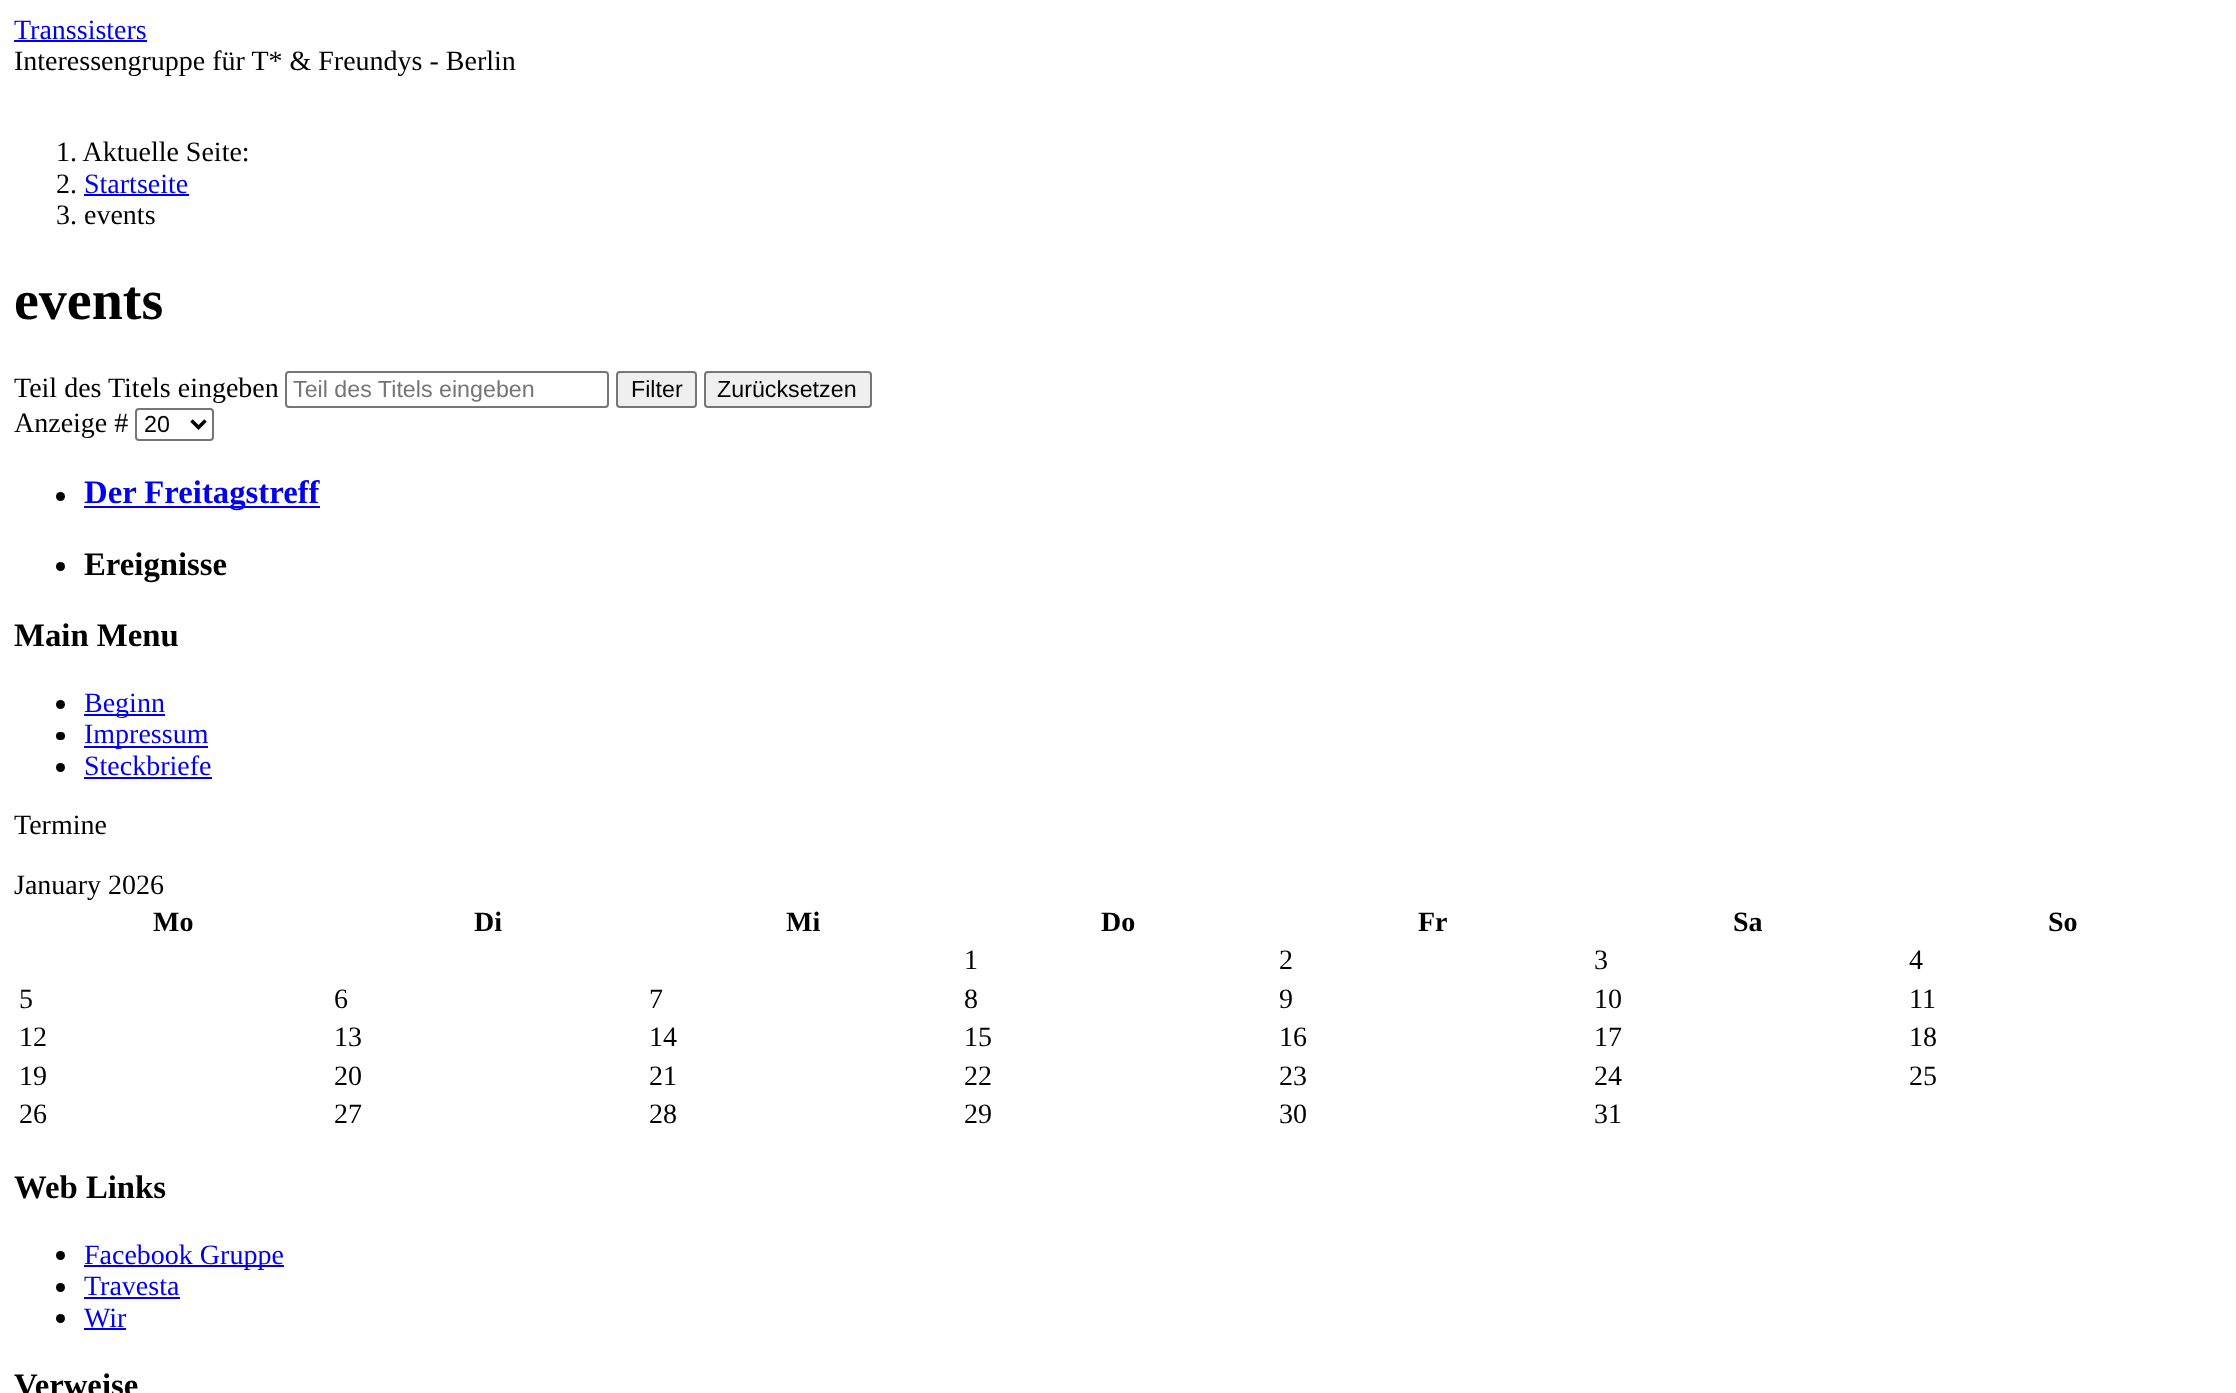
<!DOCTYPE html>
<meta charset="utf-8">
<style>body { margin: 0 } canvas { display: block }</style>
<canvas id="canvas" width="2236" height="1393"></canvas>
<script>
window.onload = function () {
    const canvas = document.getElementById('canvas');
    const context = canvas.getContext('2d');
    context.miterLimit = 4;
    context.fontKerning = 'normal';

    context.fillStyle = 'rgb(255, 255, 255)';
    context.fillRect(0, 0, 2236, 1393);
    context.fillStyle = 'rgb(0, 0, 238)';
    context.fillRect(14, 40, 133, 2);
    context.fillRect(84, 194, 105, 2);
    context.beginPath();
    context.roundRect(286, 372, 322, 35, 3);
    context.strokeStyle = 'rgb(118, 118, 118)';
    context.lineWidth = 2;
    context.stroke();
    context.fillStyle = 'rgb(239, 239, 239)';
    context.beginPath();
    context.roundRect(617, 372, 79, 35, 3);
    context.fill();
    context.stroke();
    context.beginPath();
    context.roundRect(705, 372, 166, 35, 3);
    context.fill();
    context.stroke();
    context.beginPath();
    context.roundRect(136, 409, 77, 31, 3);
    context.stroke();
    context.beginPath();
    context.moveTo(191.5, 420.5);
    context.lineTo(198.5, 427.5);
    context.lineTo(205.5, 420.5);
    context.strokeStyle = 'rgb(0, 0, 0)';
    context.lineWidth = 3.5;
    context.stroke();
    context.fillStyle = 'rgb(0, 0, 0)';
    context.beginPath();
    context.arc(60.5, 496.5, 4.5, 0, 2 * Math.PI);
    context.fill();
    context.fillStyle = 'rgb(0, 0, 238)';
    context.fillRect(84, 506, 236, 2);
    context.fillStyle = 'rgb(0, 0, 0)';
    context.beginPath();
    context.arc(60.5, 566.5, 4.5, 0, 2 * Math.PI);
    context.fill();
    context.beginPath();
    context.arc(60.5, 704.5, 4.5, 0, 2 * Math.PI);
    context.fill();
    context.fillStyle = 'rgb(0, 0, 238)';
    context.fillRect(84, 714, 81, 2);
    context.fillStyle = 'rgb(0, 0, 0)';
    context.beginPath();
    context.roundRect(56, 732, 9, 8, 4);
    context.fill();
    context.fillStyle = 'rgb(0, 0, 238)';
    context.fillRect(84, 746, 124, 2);
    context.fillStyle = 'rgb(0, 0, 0)';
    context.beginPath();
    context.arc(60.5, 767.5, 4.5, 0, 2 * Math.PI);
    context.fill();
    context.fillStyle = 'rgb(0, 0, 238)';
    context.fillRect(84, 777, 128, 2);
    context.fillStyle = 'rgb(0, 0, 0)';
    context.beginPath();
    context.arc(60.5, 1255.5, 4.5, 0, 2 * Math.PI);
    context.fill();
    context.fillStyle = 'rgb(0, 0, 238)';
    context.fillRect(84, 1265, 200, 2);
    context.fillStyle = 'rgb(0, 0, 0)';
    context.beginPath();
    context.arc(60.5, 1287.5, 4.5, 0, 2 * Math.PI);
    context.fill();
    context.fillStyle = 'rgb(0, 0, 238)';
    context.fillRect(84, 1297, 96, 2);
    context.fillStyle = 'rgb(0, 0, 0)';
    context.beginPath();
    context.arc(60.5, 1318.5, 4.5, 0, 2 * Math.PI);
    context.fill();
    context.fillStyle = 'rgb(0, 0, 238)';
    context.fillRect(84, 1328, 42, 2);
    context.font = '28px Liberation Serif';
    context.fillText('Transsisters', 14, 39);
    context.fillStyle = 'rgb(0, 0, 0)';
    context.fillText('Interessengruppe für T* & Freundys - Berlin', 14, 70);
    context.fillText('1. Aktuelle Seite:', 56, 161);
    context.fillText('2.', 56, 193);
    context.fillStyle = 'rgb(0, 0, 238)';
    context.fillText('Startseite', 84, 193);
    context.fillStyle = 'rgb(0, 0, 0)';
    context.fillText('3. events', 56, 224);
    context.font = 'bold 56px Liberation Serif';
    context.fillText('events', 14, 319);
    context.font = '28px Liberation Serif';
    context.fillText('Teil des Titels eingeben', 14, 397);
    context.font = '23.25px Liberation Sans';
    context.fillStyle = 'rgb(117, 117, 117)';
    context.fillText('Teil des Titels eingeben', 293, 397);
    context.fillStyle = 'rgb(0, 0, 0)';
    context.fillText('Filter', 631, 397);
    context.fillText('Zurücksetzen', 717, 397);
    context.font = '28px Liberation Serif';
    context.fillText('Anzeige #', 14, 432);
    context.font = '23.25px Liberation Sans';
    context.fillText('20', 144, 432);
    context.font = 'bold 32.75px Liberation Serif';
    context.fillStyle = 'rgb(0, 0, 238)';
    context.fillText('Der Freitagstreff', 84, 503);
    context.fillStyle = 'rgb(0, 0, 0)';
    context.fillText('Ereignisse', 84, 575);
    context.fillText('Main Menu', 14, 646);
    context.font = '28px Liberation Serif';
    context.fillStyle = 'rgb(0, 0, 238)';
    context.fillText('Beginn', 84, 712);
    context.fillText('Impressum', 84, 743);
    context.fillText('Steckbriefe', 84, 775);
    context.fillStyle = 'rgb(0, 0, 0)';
    context.fillText('Termine', 14, 834);
    context.fillText('January 2026', 14, 894);
    context.font = 'bold 28px Liberation Serif';
    context.fillText('Mo', 153, 931);
    context.fillText('Di', 474, 931);
    context.fillText('Mi', 786, 931);
    context.fillText('Do', 1101, 931);
    context.fillText('Fr', 1418, 931);
    context.fillText('Sa', 1733, 931);
    context.fillText('So', 2048, 931);
    context.font = '28px Liberation Serif';
    context.fillText('1', 964, 969);
    context.fillText('2', 1279, 969);
    context.fillText('3', 1594, 969);
    context.fillText('4', 1909, 969);
    context.fillText('5', 19, 1008);
    context.fillText('6', 334, 1008);
    context.fillText('7', 649, 1008);
    context.fillText('8', 964, 1008);
    context.fillText('9', 1279, 1008);
    context.fillText('10', 1594, 1008);
    context.fillText('11', 1909, 1008);
    context.fillText('12', 19, 1046);
    context.fillText('13', 334, 1046);
    context.fillText('14', 649, 1046);
    context.fillText('15', 964, 1046);
    context.fillText('16', 1279, 1046);
    context.fillText('17', 1594, 1046);
    context.fillText('18', 1909, 1046);
    context.fillText('19', 19, 1085);
    context.fillText('20', 334, 1085);
    context.fillText('21', 649, 1085);
    context.fillText('22', 964, 1085);
    context.fillText('23', 1279, 1085);
    context.fillText('24', 1594, 1085);
    context.fillText('25', 1909, 1085);
    context.fillText('26', 19, 1123);
    context.fillText('27', 334, 1123);
    context.fillText('28', 649, 1123);
    context.fillText('29', 964, 1123);
    context.fillText('30', 1279, 1123);
    context.fillText('31', 1594, 1123);
    context.font = 'bold 32.75px Liberation Serif';
    context.fillText('Web Links', 14, 1198);
    context.font = '28px Liberation Serif';
    context.fillStyle = 'rgb(0, 0, 238)';
    context.fillText('Facebook Gruppe', 84, 1264);
    context.fillText('Travesta', 84, 1295);
    context.fillText('Wir', 84, 1327);
    context.font = 'bold 32.75px Liberation Serif';
    context.fillStyle = 'rgb(0, 0, 0)';
    context.fillText('Verweise', 14, 1396);
};
</script>
